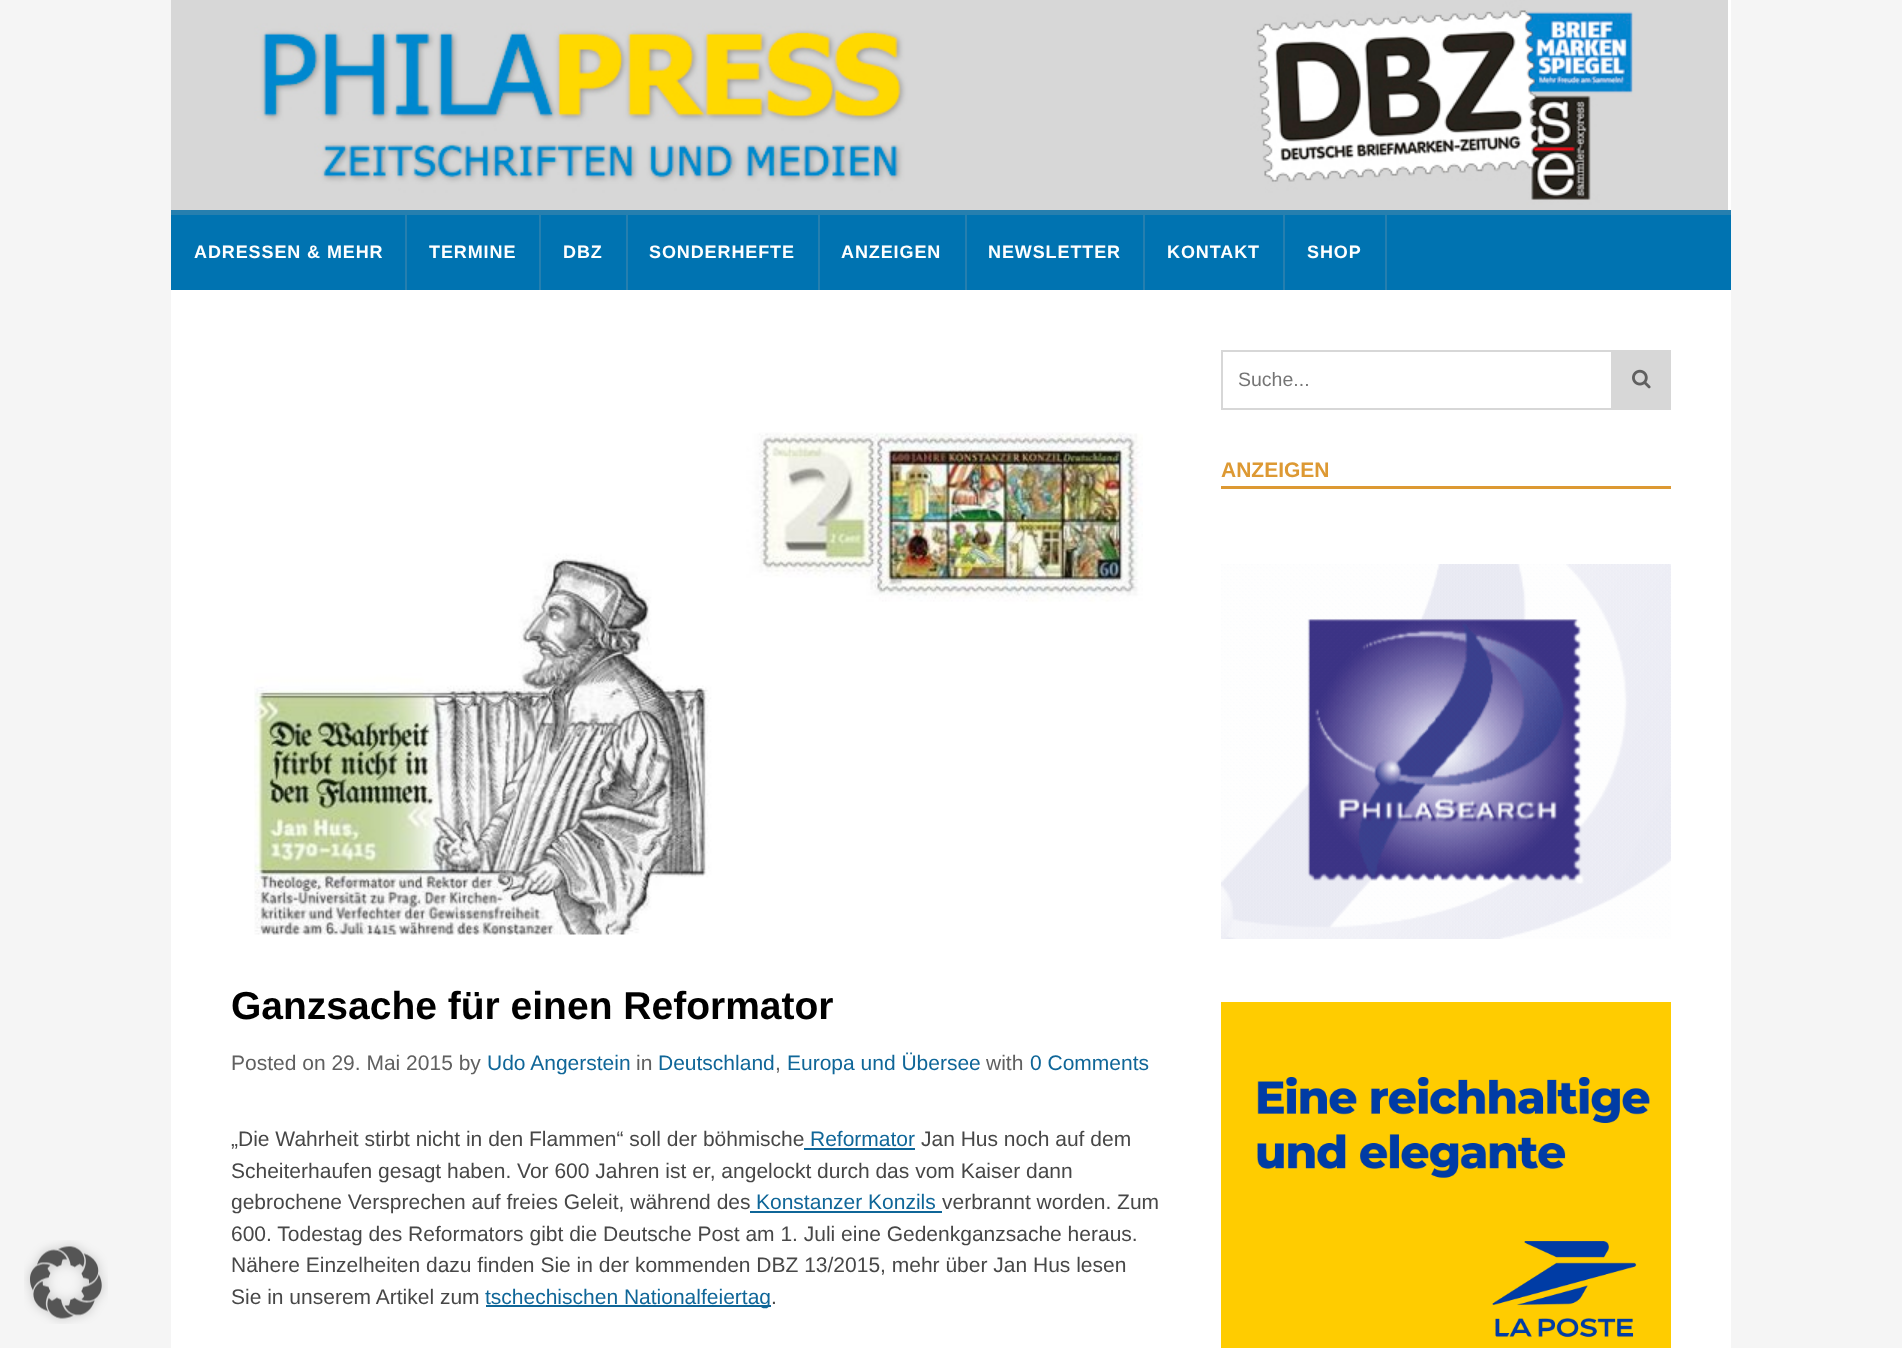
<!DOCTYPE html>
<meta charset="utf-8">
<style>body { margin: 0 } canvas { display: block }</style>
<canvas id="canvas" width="1902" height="1348"></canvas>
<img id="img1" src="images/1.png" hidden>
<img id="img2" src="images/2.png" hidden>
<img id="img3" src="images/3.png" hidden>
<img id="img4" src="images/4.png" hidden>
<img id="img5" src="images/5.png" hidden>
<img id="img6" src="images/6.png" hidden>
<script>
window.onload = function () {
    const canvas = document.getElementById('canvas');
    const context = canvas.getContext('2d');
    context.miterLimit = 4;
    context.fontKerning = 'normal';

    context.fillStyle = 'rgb(245, 245, 245)';
    context.fillRect(0, 0, 1902, 1348);
    context.drawImage(document.getElementById('img1'), 24, 1240, 84, 84);
    context.fillStyle = 'rgb(255, 255, 255)';
    context.fillRect(1728, 0, 3, 210);
    context.drawImage(document.getElementById('img2'), 171, 0, 1557, 210);
    context.fillStyle = 'rgb(0, 115, 177)';
    context.fillRect(171, 215, 1560, 75);
    context.fillStyle = 'rgb(38, 127, 175)';
    context.fillRect(171, 210, 1560, 5);
    context.fillRect(405, 215, 2, 75);
    context.fillRect(539, 215, 2, 75);
    context.fillRect(626, 215, 2, 75);
    context.fillRect(818, 215, 2, 75);
    context.fillRect(965, 215, 2, 75);
    context.fillRect(1143, 215, 2, 75);
    context.fillRect(1283, 215, 2, 75);
    context.fillRect(1385, 215, 2, 75);
    context.fillStyle = 'rgb(255, 255, 255)';
    context.fillRect(171, 290, 1560, 1058);
    context.strokeStyle = 'rgb(215, 215, 215)';
    context.lineWidth = 2;
    context.strokeRect(1222, 351, 448, 58);
    context.fillStyle = 'rgb(215, 215, 215)';
    context.fillRect(1611, 352, 58, 56);
    context.drawImage(document.getElementById('img3'), 1632, 369, 19, 20);
    context.fillStyle = 'rgb(221, 153, 51)';
    context.fillRect(1221, 486, 450, 3);
    context.drawImage(document.getElementById('img4'), 1221, 564, 450, 375);
    context.drawImage(document.getElementById('img5'), 1221, 1002, 450, 346);
    context.drawImage(document.getElementById('img6'), 254, 432, 889, 503);
    context.fillStyle = 'rgb(15, 102, 152)';
    context.fillRect(804, 1148, 111, 2);
    context.fillRect(750, 1211, 192, 2);
    context.fillRect(486, 1305, 285, 2);
    context.letterSpacing = '0.9px';
    context.font = 'bold 18px Liberation Sans';
    context.fillStyle = 'rgb(255, 255, 255)';
    context.fillText('ADRESSEN & MEHR', 194, 258);
    context.fillText('TERMINE', 429, 258);
    context.fillText('DBZ', 563, 258);
    context.fillText('SONDERHEFTE', 649, 258);
    context.fillText('ANZEIGEN', 841, 258);
    context.fillText('NEWSLETTER', 988, 258);
    context.fillText('KONTAKT', 1167, 258);
    context.fillText('SHOP', 1307, 258);
    context.letterSpacing = '0px';
    context.font = '19.5px Liberation Sans';
    context.fillStyle = 'rgb(117, 117, 117)';
    context.fillText('Suche...', 1238, 386);
    context.font = 'bold 21px Liberation Sans';
    context.fillStyle = 'rgb(221, 153, 51)';
    context.fillText('ANZEIGEN', 1221, 477);
    context.font = 'bold 39px Liberation Sans';
    context.fillStyle = 'rgb(0, 0, 0)';
    context.fillText('Ganzsache für einen Reformator', 231, 1019);
    context.font = '21px Liberation Sans';
    context.fillStyle = 'rgb(96, 96, 96)';
    context.fillText('Posted on 29. Mai 2015 by', 231, 1070);
    context.fillStyle = 'rgb(15, 102, 152)';
    context.fillText('Udo Angerstein', 487, 1070);
    context.fillStyle = 'rgb(96, 96, 96)';
    context.fillText('in', 636, 1070);
    context.fillStyle = 'rgb(15, 102, 152)';
    context.fillText('Deutschland', 658, 1070);
    context.fillStyle = 'rgb(96, 96, 96)';
    context.fillText(',', 775, 1070);
    context.fillStyle = 'rgb(15, 102, 152)';
    context.fillText('Europa und Übersee', 787, 1070);
    context.fillStyle = 'rgb(96, 96, 96)';
    context.fillText('with', 986, 1070);
    context.fillStyle = 'rgb(15, 102, 152)';
    context.fillText('0 Comments', 1030, 1070);
    context.fillStyle = 'rgb(71, 71, 71)';
    context.fillText('„Die Wahrheit stirbt nicht in den Flammen“ soll der böhmische', 231, 1146);
    context.fillStyle = 'rgb(15, 102, 152)';
    context.fillText('Reformator', 810, 1146);
    context.fillStyle = 'rgb(71, 71, 71)';
    context.fillText('Jan Hus noch auf dem', 921, 1146);
    context.fillText('Scheiterhaufen gesagt haben. Vor 600 Jahren ist er, angelockt durch das vom Kaiser dann', 231, 1178);
    context.fillText('gebrochene Versprechen auf freies Geleit, während des', 231, 1209);
    context.fillStyle = 'rgb(15, 102, 152)';
    context.fillText('Konstanzer Konzils', 756, 1209);
    context.fillStyle = 'rgb(71, 71, 71)';
    context.fillText('verbrannt worden. Zum', 942, 1209);
    context.fillText('600. Todestag des Reformators gibt die Deutsche Post am 1. Juli eine Gedenkganzsache heraus.', 231, 1241);
    context.fillText('Nähere Einzelheiten dazu finden Sie in der kommenden DBZ 13/2015, mehr über Jan Hus lesen', 231, 1272);
    context.fillText('Sie in unserem Artikel zum', 231, 1304);
    context.fillStyle = 'rgb(15, 102, 152)';
    context.fillText('tschechischen Nationalfeiertag', 485, 1304);
    context.fillStyle = 'rgb(71, 71, 71)';
    context.fillText('.', 771, 1304);
};
</script>
